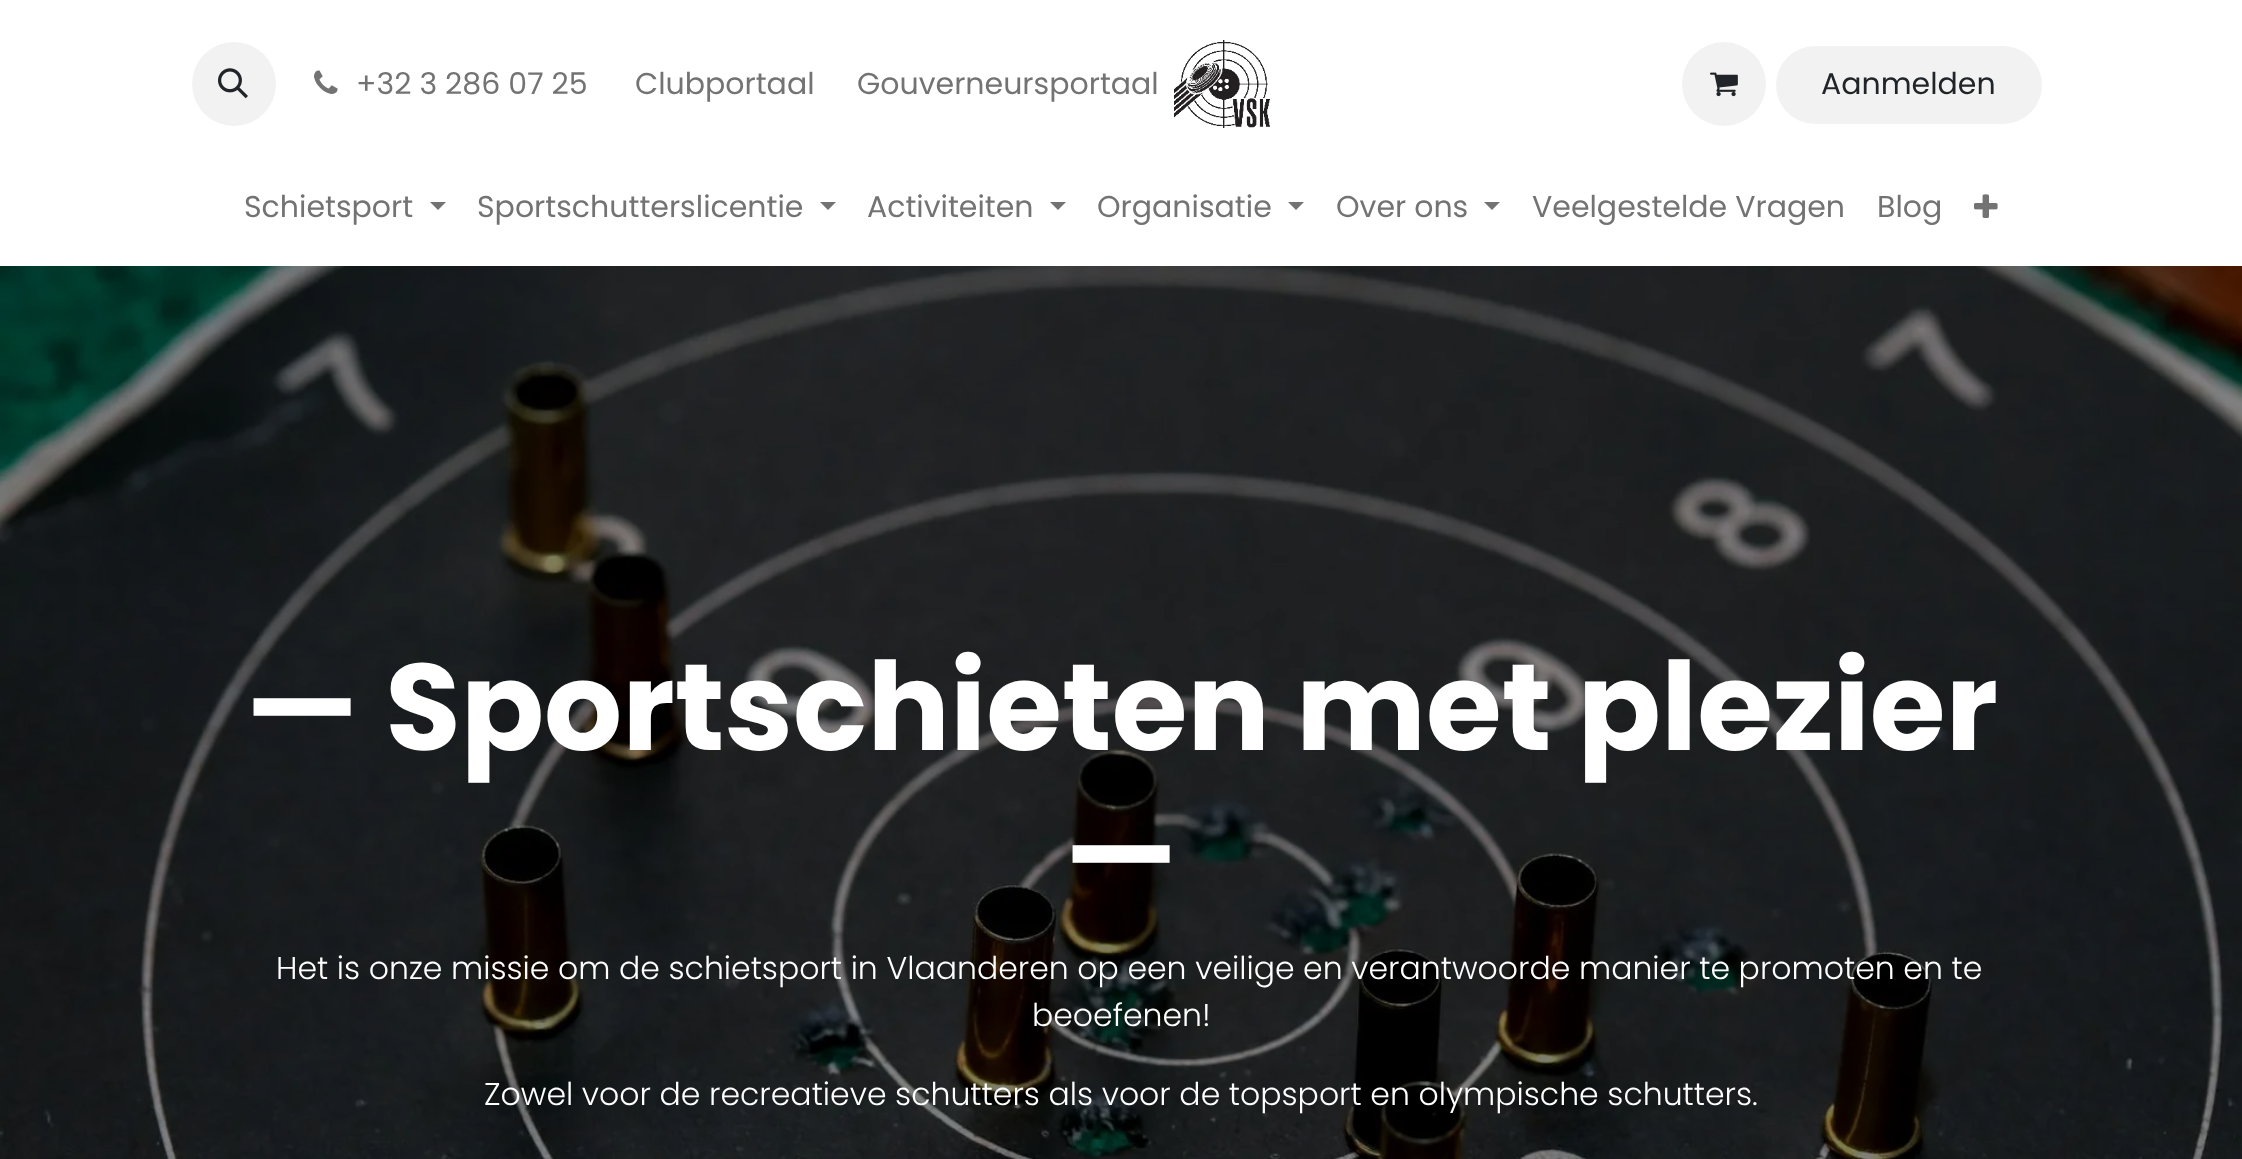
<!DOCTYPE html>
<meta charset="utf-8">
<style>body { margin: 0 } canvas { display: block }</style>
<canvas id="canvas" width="2242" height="1159"></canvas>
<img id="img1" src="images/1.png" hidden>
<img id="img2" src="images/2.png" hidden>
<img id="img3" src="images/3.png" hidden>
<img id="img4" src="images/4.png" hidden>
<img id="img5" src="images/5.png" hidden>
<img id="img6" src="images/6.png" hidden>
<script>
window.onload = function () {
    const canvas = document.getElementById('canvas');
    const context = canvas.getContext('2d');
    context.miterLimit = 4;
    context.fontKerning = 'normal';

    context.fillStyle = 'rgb(255, 255, 255)';
    context.fillRect(0, 0, 2242, 1159);
    context.fillStyle = 'rgb(242, 242, 242)';
    context.beginPath();
    context.arc(234, 84, 42, 0, 2 * Math.PI);
    context.fill();
    context.drawImage(document.getElementById('img1'), 218, 68, 30, 31);
    context.drawImage(document.getElementById('img2'), 314, 70, 24, 24);
    context.drawImage(document.getElementById('img3'), 1174, 40, 96, 88);
    context.beginPath();
    context.arc(1724, 84, 42, 0, 2 * Math.PI);
    context.fill();
    context.drawImage(document.getElementById('img4'), 1710, 72, 28, 25);
    context.beginPath();
    context.roundRect(1776, 46, 266, 78, 39);
    context.fill();
    context.fillStyle = 'rgb(115, 115, 115)';
    context.beginPath();
    context.moveTo(430, 202);
    context.lineTo(446, 202);
    context.lineTo(438, 210);
    context.closePath();
    context.fill();
    context.beginPath();
    context.moveTo(820, 202);
    context.lineTo(836, 202);
    context.lineTo(828, 210);
    context.closePath();
    context.fill();
    context.beginPath();
    context.moveTo(1050, 202);
    context.lineTo(1066, 202);
    context.lineTo(1058, 210);
    context.closePath();
    context.fill();
    context.beginPath();
    context.moveTo(1288, 202);
    context.lineTo(1304, 202);
    context.lineTo(1296, 210);
    context.closePath();
    context.fill();
    context.beginPath();
    context.moveTo(1484, 202);
    context.lineTo(1500, 202);
    context.lineTo(1492, 210);
    context.closePath();
    context.fill();
    context.drawImage(document.getElementById('img5'), 1974, 194, 24, 24);
    context.drawImage(document.getElementById('img6'), 0, 266, 2242, 893);
    context.font = '30px Poppins';
    context.fillText('+32 3 286 07 25', 356, 94);
    context.fillText('Clubportaal', 635, 94);
    context.fillText('Gouverneursportaal', 857, 94);
    context.fillStyle = 'rgb(33, 37, 41)';
    context.fillText('Aanmelden', 1821, 94);
    context.fillStyle = 'rgb(115, 115, 115)';
    context.fillText('Schietsport', 244, 217);
    context.fillText('Sportschutterslicentie', 477, 217);
    context.fillText('Activiteiten', 867, 217);
    context.fillText('Organisatie', 1097, 217);
    context.fillText('Over ons', 1336, 217);
    context.fillText('Veelgestelde Vragen', 1532, 217);
    context.fillText('Blog', 1877, 217);
    context.font = 'bold 122.75px Poppins';
    context.fillStyle = 'rgb(255, 255, 255)';
    context.fillText('— Sportschieten met plezier', 245, 750);
    context.fillText('—', 1064, 897);
    context.font = '300 31.5px Poppins';
    context.fillText('Het is onze missie om de schietsport in Vlaanderen op een veilige en verantwoorde manier te promoten en te', 276, 979);
    context.fillText('beoefenen!', 1032, 1026);
    context.fillText('Zowel voor de recreatieve schutters als voor de topsport en olympische schutters.', 484, 1105);
};
</script>
